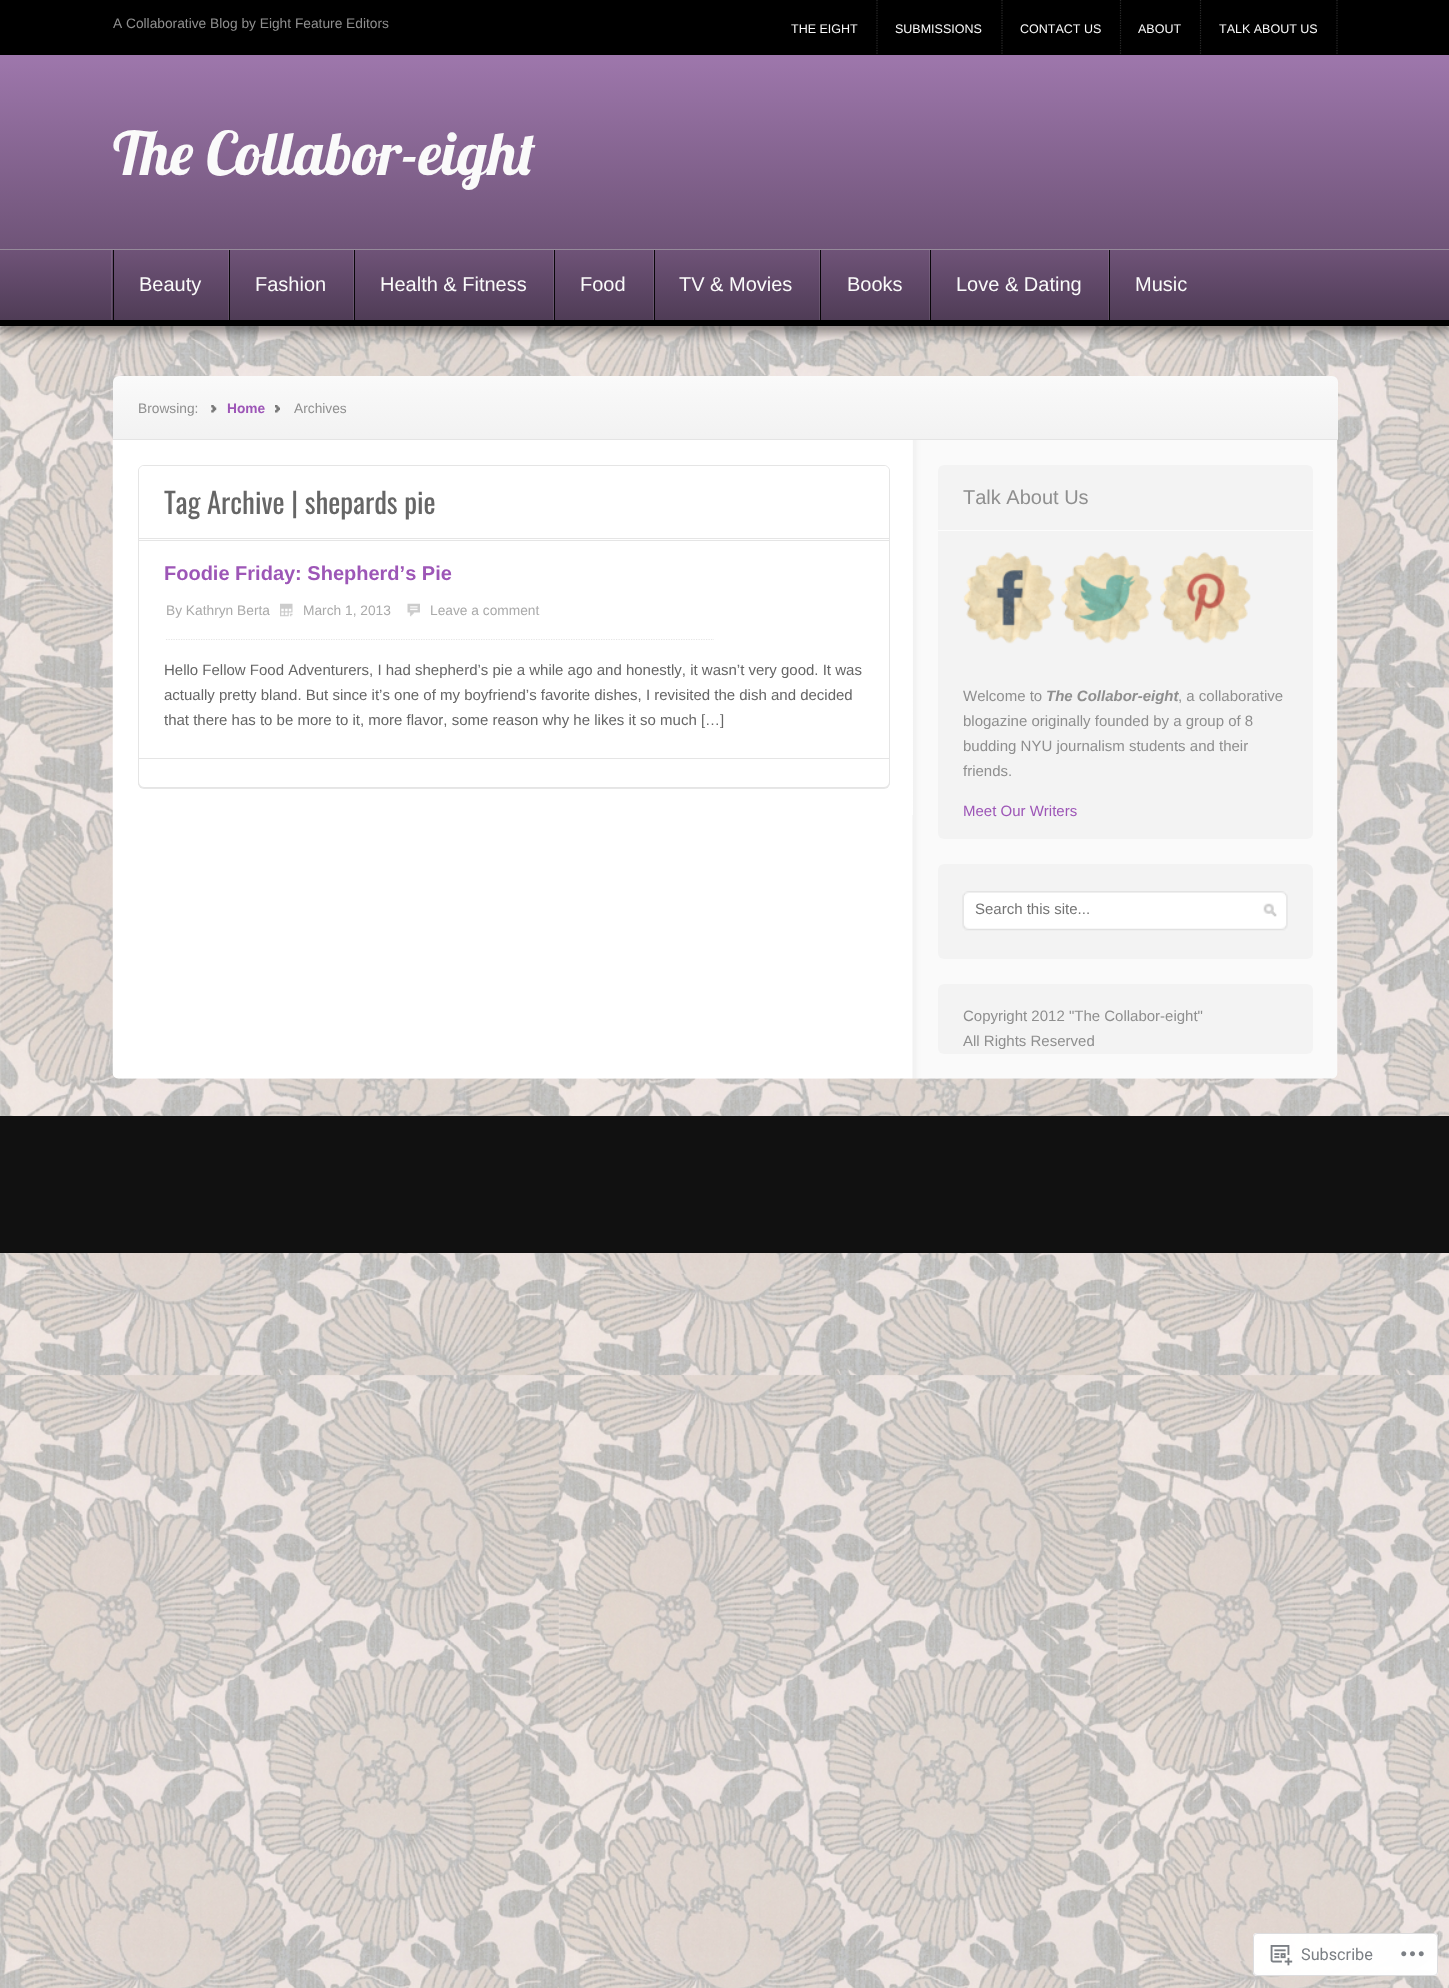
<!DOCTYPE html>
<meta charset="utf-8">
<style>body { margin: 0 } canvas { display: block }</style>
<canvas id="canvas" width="1449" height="1988"></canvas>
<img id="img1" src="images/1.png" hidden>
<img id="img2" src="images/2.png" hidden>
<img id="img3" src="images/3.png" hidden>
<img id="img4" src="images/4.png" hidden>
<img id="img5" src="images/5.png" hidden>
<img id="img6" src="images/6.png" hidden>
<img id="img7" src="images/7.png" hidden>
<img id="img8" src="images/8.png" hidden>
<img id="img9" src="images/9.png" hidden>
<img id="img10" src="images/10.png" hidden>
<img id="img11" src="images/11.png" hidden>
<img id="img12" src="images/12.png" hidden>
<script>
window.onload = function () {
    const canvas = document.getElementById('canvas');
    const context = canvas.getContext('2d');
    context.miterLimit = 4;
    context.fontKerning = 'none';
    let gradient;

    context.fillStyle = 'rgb(255, 255, 255)';
    context.fillRect(0, 0, 1449, 1988);
    context.drawImage(document.getElementById('img1'), 0, 326, 1449, 1662);
    context.fillStyle = 'rgb(0, 0, 0)';
    context.fillRect(0, 0, 1449, 55);
    context.beginPath();
    context.moveTo(877, 0);
    context.lineTo(877, 55);
    context.strokeStyle = 'rgb(42, 42, 42)';
    context.lineWidth = 1.2;
    context.setLineDash([1.25, 1.25]);
    context.stroke();
    context.beginPath();
    context.moveTo(1002, 0);
    context.lineTo(1002, 55);
    context.stroke();
    context.beginPath();
    context.moveTo(1120.5, 0);
    context.lineTo(1120.5, 55);
    context.stroke();
    context.beginPath();
    context.moveTo(1200.5, 0);
    context.lineTo(1200.5, 55);
    context.stroke();
    context.beginPath();
    context.moveTo(1337, 0);
    context.lineTo(1337, 55);
    context.stroke();
    context.fillStyle = 'rgba(0, 0, 0, 0.4)';
    context.filter = 'blur(5.5px)';
    context.beginPath();
    context.rect(0, 255, 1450, 78);
    context.fill();
    context.filter = 'none';
    gradient = context.createLinearGradient(0, 55, 0, 249);
    gradient.addColorStop(0, 'rgb(158, 119, 172)');
    gradient.addColorStop(1, 'rgb(111, 84, 120)');
    context.fillStyle = gradient;
    context.fillRect(0, 55, 1449, 194);
    gradient = context.createLinearGradient(0, 250, 0, 320);
    gradient.addColorStop(0, 'rgb(111, 83, 120)');
    gradient.addColorStop(1, 'rgb(79, 60, 86)');
    context.fillStyle = gradient;
    context.fillRect(0, 250, 1449, 70);
    context.fillStyle = 'rgb(149, 138, 154)';
    context.fillRect(0, 249, 1449, 1);
    context.fillStyle = 'rgb(0, 0, 0)';
    context.fillRect(0, 320, 1449, 6);
    context.fillStyle = 'rgba(255, 255, 255, 0.1)';
    context.fillRect(111, 250, 1, 70);
    context.fillStyle = 'rgba(0, 0, 0, 0.9)';
    context.fillRect(113, 250, 1, 70);
    context.fillStyle = 'rgba(255, 255, 255, 0.1)';
    context.fillRect(228, 250, 1, 70);
    context.fillStyle = 'rgba(0, 0, 0, 0.9)';
    context.fillRect(229, 250, 1, 70);
    context.fillStyle = 'rgba(255, 255, 255, 0.1)';
    context.fillRect(353, 250, 1, 70);
    context.fillStyle = 'rgba(0, 0, 0, 0.9)';
    context.fillRect(354, 250, 1, 70);
    context.fillStyle = 'rgba(255, 255, 255, 0.1)';
    context.fillRect(553, 250, 1, 70);
    context.fillStyle = 'rgba(0, 0, 0, 0.9)';
    context.fillRect(554, 250, 1, 70);
    context.fillStyle = 'rgba(255, 255, 255, 0.1)';
    context.fillRect(653, 250, 1, 70);
    context.fillStyle = 'rgba(0, 0, 0, 0.9)';
    context.fillRect(654, 250, 1, 70);
    context.fillStyle = 'rgba(255, 255, 255, 0.1)';
    context.fillRect(819, 250, 1, 70);
    context.fillStyle = 'rgba(0, 0, 0, 0.9)';
    context.fillRect(820, 250, 1, 70);
    context.fillStyle = 'rgba(255, 255, 255, 0.1)';
    context.fillRect(929, 250, 1, 70);
    context.fillStyle = 'rgba(0, 0, 0, 0.9)';
    context.fillRect(930, 250, 1, 70);
    context.fillStyle = 'rgba(255, 255, 255, 0.1)';
    context.fillRect(1108, 250, 1, 70);
    context.fillStyle = 'rgba(0, 0, 0, 0.9)';
    context.fillRect(1109, 250, 1, 70);
    gradient = context.createLinearGradient(113, 376, 113, 439);
    gradient.addColorStop(0, 'rgb(250, 250, 250)');
    gradient.addColorStop(1, 'rgb(242, 242, 242)');
    context.fillStyle = gradient;
    context.beginPath();
    context.roundRect(113, 376, 1225, 63, [6, 6, 0, 0]);
    context.fill();
    context.fillStyle = 'rgb(228, 228, 228)';
    context.fillRect(113, 439, 1225, 1);
    context.drawImage(document.getElementById('img2'), 211, 405, 6, 8);
    context.drawImage(document.getElementById('img3'), 275, 405, 5, 8);
    context.drawImage(document.getElementById('img4'), 112, 440, 1226, 639);
    gradient = context.createLinearGradient(113, 440, 113, 815);
    gradient.addColorStop(0, 'rgb(253, 253, 253)');
    gradient.addColorStop(1, 'rgb(255, 255, 255)');
    context.fillStyle = gradient;
    context.fillRect(912, 440, 1, 375);
    context.fillStyle = 'rgb(231, 231, 231)';
    context.filter = 'blur(0.5px)';
    context.beginPath();
    context.roundRect(138, 466, 752, 323, 6);
    context.fill();
    context.filter = 'none';
    context.fillStyle = 'rgb(255, 255, 255)';
    context.beginPath();
    context.roundRect(138.5, 465.5, 751, 322, 5.5);
    context.fill();
    context.strokeStyle = 'rgb(229, 229, 229)';
    context.lineWidth = 1;
    context.setLineDash([]);
    context.stroke();
    context.beginPath();
    context.roundRect(139, 466, 750, 75, [5, 5, 0, 0]);
    context.fill();
    context.fillStyle = 'rgb(229, 229, 229)';
    context.fillRect(139, 538, 750, 1);
    context.fillRect(139, 540, 750, 1);
    context.fillRect(139, 758, 750, 1);
    context.beginPath();
    context.moveTo(166, 639.5);
    context.lineTo(714, 639.5);
    context.lineWidth = 1.2;
    context.setLineDash([1.25, 1.25]);
    context.stroke();
    context.drawImage(document.getElementById('img5'), 280, 603, 13, 14);
    context.drawImage(document.getElementById('img6'), 407, 603, 13, 14);
    context.fillStyle = 'rgb(243, 243, 243)';
    context.beginPath();
    context.roundRect(938, 465, 375, 374, 6);
    context.fill();
    context.fillStyle = 'rgb(252, 252, 252)';
    context.fillRect(938, 530, 375, 1);
    context.drawImage(document.getElementById('img7'), 963, 552, 92, 92);
    context.drawImage(document.getElementById('img8'), 1061, 552, 92, 92);
    context.drawImage(document.getElementById('img9'), 1160, 552, 91, 92);
    context.fillStyle = 'rgb(243, 243, 243)';
    context.beginPath();
    context.roundRect(938, 864, 375, 95, 6);
    context.fill();
    context.drawImage(document.getElementById('img10'), 962, 891, 326, 40);
    context.beginPath();
    context.roundRect(938, 984, 375, 70, 6);
    context.fill();
    context.fillStyle = 'rgb(17, 17, 17)';
    context.fillRect(0, 1116, 1449, 137);
    context.fillStyle = 'rgba(255, 255, 255, 0.98)';
    context.beginPath();
    context.roundRect(1253, 1933, 185, 43, 4);
    context.fill();
    context.beginPath();
    context.roundRect(1253.5, 1933.5, 184, 42, 3.5);
    context.strokeStyle = 'rgba(220, 220, 222, 0.98)';
    context.lineWidth = 1;
    context.setLineDash([]);
    context.stroke();
    context.drawImage(document.getElementById('img11'), 1270, 1945, 23, 21);
    context.drawImage(document.getElementById('img12'), 1401, 1951, 23, 6);
    context.font = '13.75px Liberation Sans';
    context.fillStyle = 'rgb(143, 143, 143)';
    context.fillText('A Collaborative Blog by Eight Feature Editors', 113, 28);
    context.font = '12.5px Liberation Sans';
    context.fillStyle = 'rgb(250, 250, 250)';
    context.fillText('THE EIGHT', 791, 33);
    context.fillText('SUBMISSIONS', 895, 33);
    context.fillText('CONTACT US', 1020, 33);
    context.fillText('ABOUT', 1138, 33);
    context.fillText('TALK ABOUT US', 1219, 33);
    context.font = '60px Lobster';
    context.fillText('The Collabor-eight', 113, 175);
    context.font = '20px Liberation Sans';
    context.fillText('Beauty', 139, 291);
    context.fillText('Fashion', 255, 291);
    context.fillText('Health & Fitness', 380, 291);
    context.fillText('Food', 580, 291);
    context.fillText('TV & Movies', 679, 291);
    context.fillText('Books', 847, 291);
    context.fillText('Love & Dating', 956, 291);
    context.fillText('Music', 1135, 291);
    context.font = '13.75px Liberation Sans';
    context.fillStyle = 'rgb(143, 143, 143)';
    context.fillText('Browsing:', 138, 413);
    context.font = 'bold 13.75px Liberation Sans';
    context.fillStyle = 'rgb(157, 86, 183)';
    context.fillText('Home', 227, 413);
    context.font = '13.75px Liberation Sans';
    context.fillStyle = 'rgb(143, 143, 143)';
    context.fillText('Archives', 294, 413);
    context.font = '28.75px Oswald';
    context.fillStyle = 'rgb(102, 102, 102)';
    context.fillText('Tag Archive | shepards pie', 164, 514);
    context.font = 'bold 20px Liberation Sans';
    context.fillStyle = 'rgb(157, 86, 183)';
    context.fillText('Foodie Friday: Shepherd’s Pie', 164, 580);
    context.font = '13.75px Liberation Sans';
    context.fillStyle = 'rgb(170, 170, 170)';
    context.fillText('By Kathryn Berta', 166, 615);
    context.fillText('March 1, 2013', 303, 615);
    context.fillText('Leave a comment', 430, 615);
    context.font = '15px Liberation Sans';
    context.fillStyle = 'rgb(102, 102, 102)';
    context.fillText('Hello Fellow Food Adventurers, I had shepherd’s pie a while ago and honestly, it wasn’t very good. It was', 164, 675);
    context.fillText('actually pretty bland. But since it’s one of my boyfriend’s favorite dishes, I revisited the dish and decided', 164, 700);
    context.fillText('that there has to be more to it, more flavor, some reason why he likes it so much […]', 164, 725);
    context.font = '20px Liberation Sans';
    context.fillStyle = 'rgb(143, 143, 143)';
    context.fillText('Talk About Us', 963, 504);
    context.font = '15px Liberation Sans';
    context.fillText('Welcome to', 963, 701);
    context.font = 'italic bold 15px Liberation Sans';
    context.fillText('The Collabor-eight', 1046, 701);
    context.font = '15px Liberation Sans';
    context.fillText(', a collaborative', 1178, 701);
    context.fillText('blogazine originally founded by a group of 8', 963, 726);
    context.fillText('budding NYU journalism students and their', 963, 751);
    context.fillText('friends.', 963, 776);
    context.fillStyle = 'rgb(157, 86, 183)';
    context.fillText('Meet Our Writers', 963, 816);
    context.fillStyle = 'rgb(117, 117, 117)';
    context.fillText('Search this site...', 975, 914);
    context.fillStyle = 'rgb(143, 143, 143)';
    context.fillText('Copyright 2012 "The Collabor-eight"', 963, 1021);
    context.fillText('All Rights Reserved', 963, 1046);
    context.font = '16.25px Roboto';
    context.fillStyle = 'rgb(123, 127, 132)';
    context.fillText('Subscribe', 1301, 1960);
};
</script>
